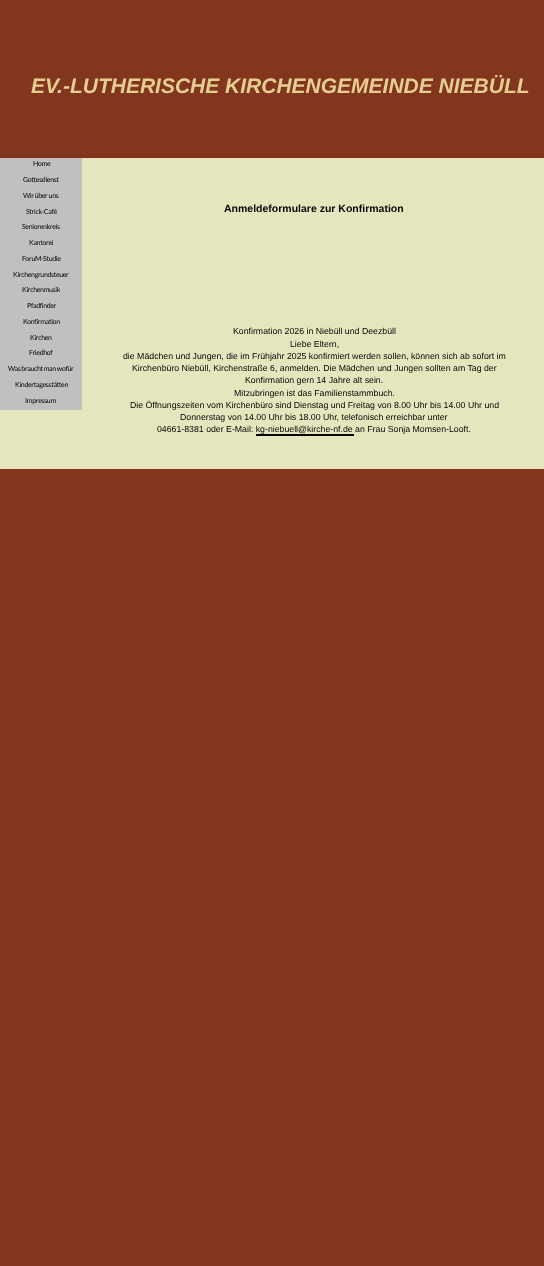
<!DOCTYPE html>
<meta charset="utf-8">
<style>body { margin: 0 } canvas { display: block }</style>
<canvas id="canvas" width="544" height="1266"></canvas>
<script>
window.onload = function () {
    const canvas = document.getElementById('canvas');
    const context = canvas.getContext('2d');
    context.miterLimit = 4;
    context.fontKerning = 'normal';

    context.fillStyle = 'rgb(131, 54, 30)';
    context.fillRect(0, 0, 544, 1266);
    context.fillStyle = 'rgb(230, 230, 190)';
    context.fillRect(0, 158, 544, 311);
    context.fillStyle = 'rgb(192, 192, 192)';
    context.fillRect(0, 158, 82, 252);
    context.fillStyle = 'rgb(5, 5, 5)';
    context.fillRect(256, 434, 98, 2);
    context.font = 'italic bold 21px Liberation Sans';
    context.fillStyle = 'rgb(230, 206, 146)';
    context.fillText('EV.-LUTHERISCHE KIRCHENGEMEINDE NIEBÜLL', 31, 93);
    context.letterSpacing = '-0.35px';
    context.font = '7px Lato';
    context.fillStyle = 'rgb(5, 5, 5)';
    context.fillText('Home', 33, 166);
    context.fillText('Gottesdienst', 23, 182);
    context.fillText('Wir über uns', 23, 198);
    context.fillText('Strick-Café', 26, 214);
    context.fillText('Seniorenkreis', 22, 229);
    context.fillText('Kantorei', 29, 245);
    context.fillText('ForuM-Studie', 22, 261);
    context.fillText('Kirchengrundsteuer', 13, 277);
    context.fillText('Kirchenmusik', 22, 292);
    context.fillText('Pfadfinder', 27, 308);
    context.fillText('Konfirmation', 23, 324);
    context.fillText('Kirchen', 30, 340);
    context.fillText('Friedhof', 29, 355);
    context.fillText('Was braucht man wofür', 8, 371);
    context.fillText('Kindertagesstätten', 15, 387);
    context.fillText('Impressum', 25, 403);
    context.letterSpacing = '0px';
    context.font = 'bold 10.5px Liberation Sans';
    context.fillText('Anmeldeformulare zur Konfirmation', 224, 212);
    context.font = '8.75px Liberation Sans';
    context.fillText('Konfirmation 2026 in Niebüll und Deezbüll', 233, 334);
    context.fillText('Liebe Eltern,', 290, 347);
    context.fillText('die Mädchen und Jungen, die im Frühjahr 2025 konfirmiert werden sollen, können sich ab sofort im', 123, 359);
    context.fillText('Kirchenbüro Niebüll, Kirchenstraße 6, anmelden. Die Mädchen und Jungen sollten am Tag der', 132, 371);
    context.fillText('Konfirmation gern 14 Jahre alt sein.', 245, 383);
    context.fillText('Mitzubringen ist das Familienstammbuch.', 234, 396);
    context.fillText('Die Öffnungszeiten vom Kirchenbüro sind Dienstag und Freitag von 8.00 Uhr bis 14.00 Uhr und', 130, 408);
    context.fillText('Donnerstag von 14.00 Uhr bis 18.00 Uhr, telefonisch erreichbar unter', 180, 420);
    context.fillText('04661-8381 oder E-Mail: kg-niebuell@kirche-nf.de an Frau Sonja Momsen-Looft.', 157, 432);
};
</script>
